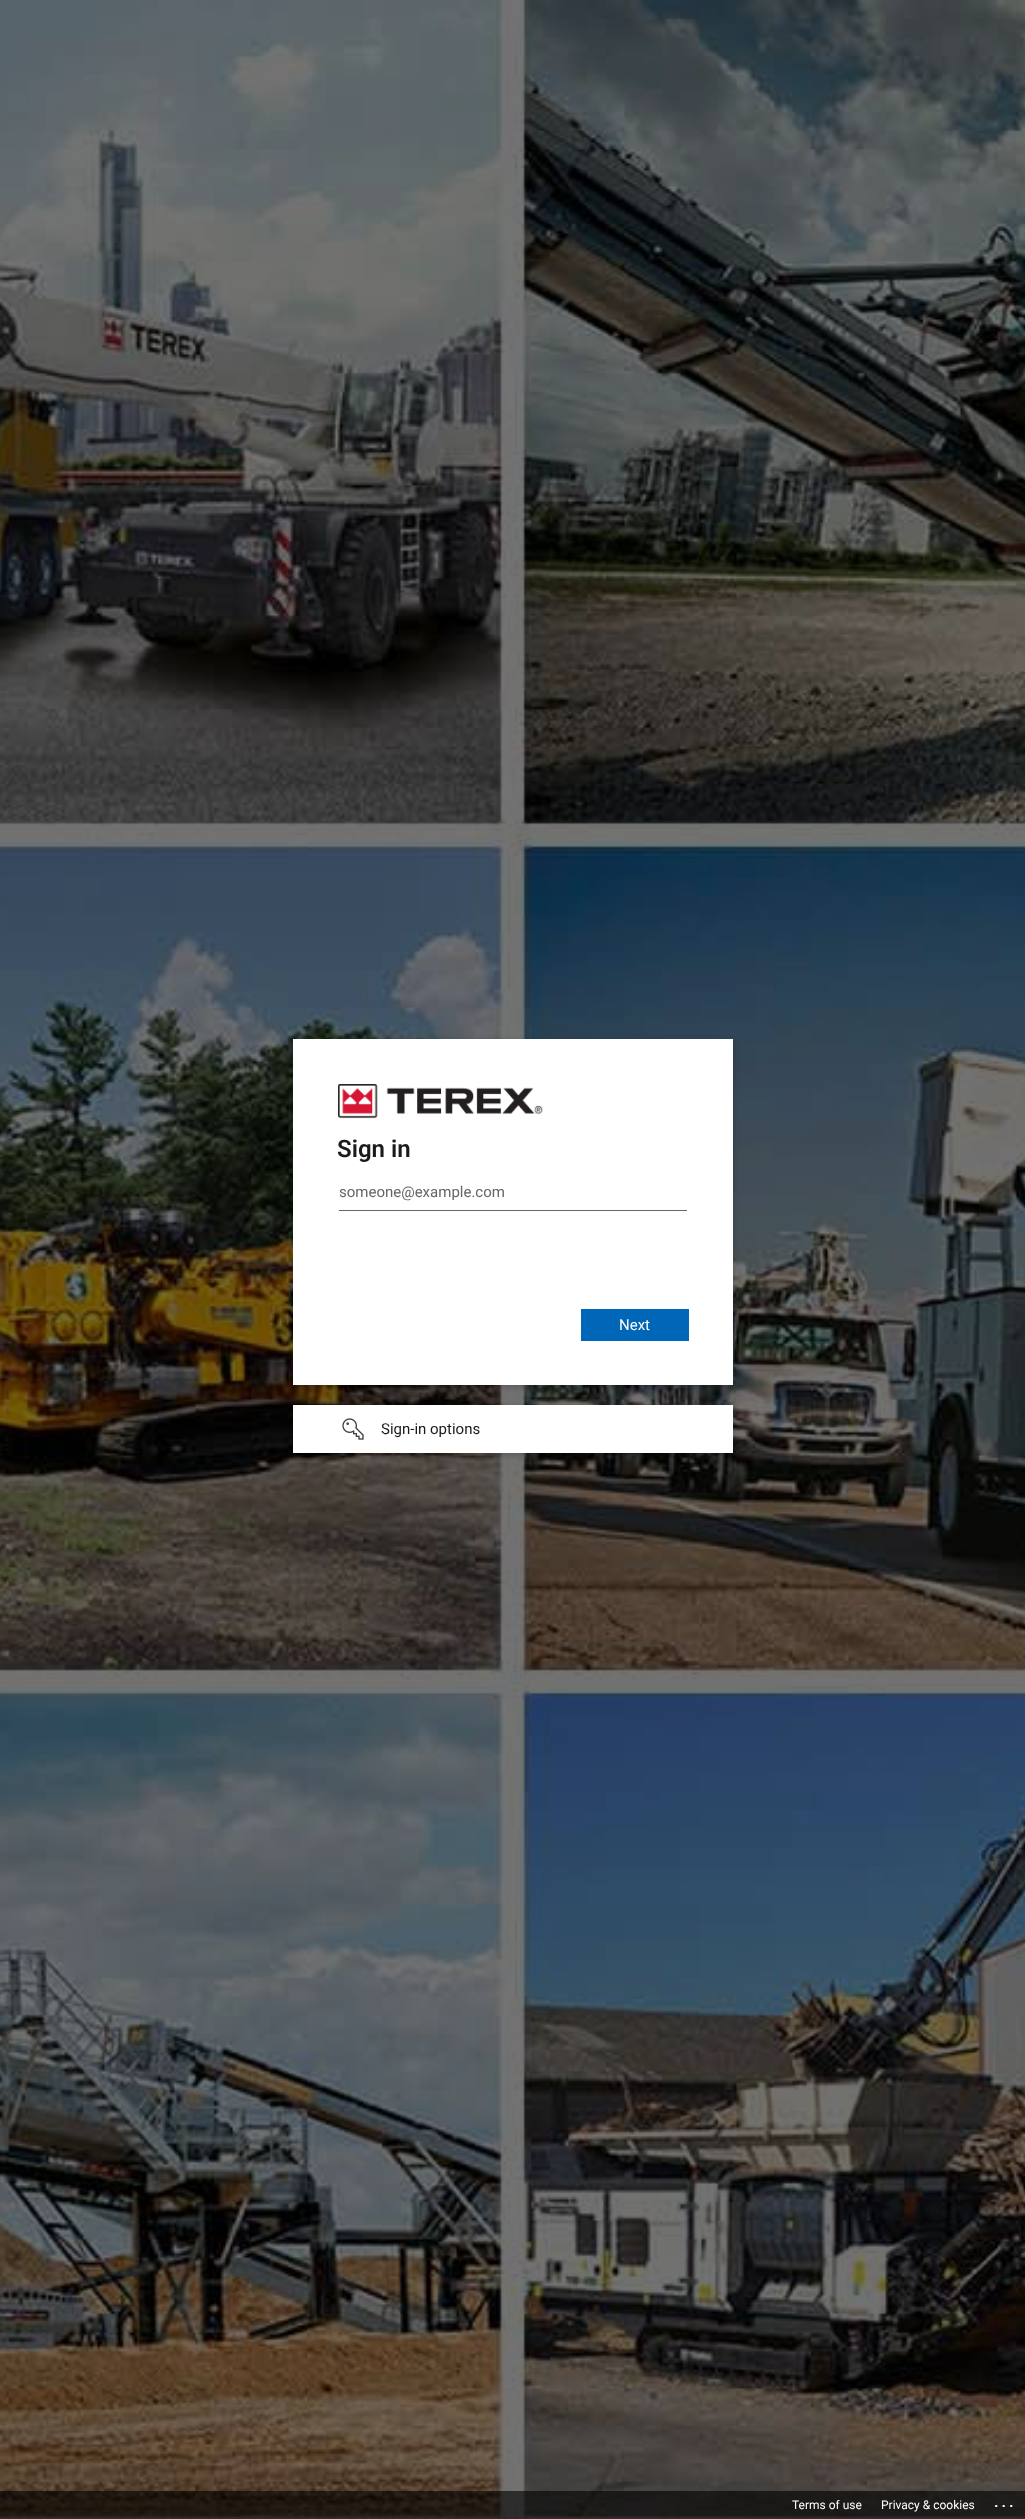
<!DOCTYPE html>
<meta charset="utf-8">
<style>body { margin: 0 } canvas { display: block }</style>
<canvas id="canvas" width="1025" height="2519"></canvas>
<img id="img1" src="images/1.png" hidden>
<img id="img2" src="images/2.png" hidden>
<img id="img3" src="images/3.png" hidden>
<script>
window.onload = function () {
    const canvas = document.getElementById('canvas');
    const context = canvas.getContext('2d');
    context.miterLimit = 4;
    context.fontKerning = 'normal';

    context.fillStyle = 'rgb(255, 255, 255)';
    context.fillRect(0, 0, 1025, 2519);
    context.drawImage(document.getElementById('img1'), 0, 0, 1025, 2519);
    context.fillStyle = 'rgba(0, 0, 0, 0.2)';
    context.filter = 'blur(3px)';
    context.beginPath();
    context.rect(293, 1041, 440, 346);
    context.fill();
    context.filter = 'none';
    context.fillStyle = 'rgb(255, 255, 255)';
    context.fillRect(293, 1039, 440, 346);
    context.drawImage(document.getElementById('img2'), 338, 1084, 205, 35);
    context.fillStyle = 'rgb(102, 102, 102)';
    context.fillRect(339, 1210, 348, 1);
    context.fillStyle = 'rgb(0, 103, 184)';
    context.fillRect(581, 1309, 108, 32);
    context.fillStyle = 'rgba(0, 0, 0, 0.2)';
    context.filter = 'blur(3px)';
    context.beginPath();
    context.rect(293, 1407, 440, 48);
    context.fill();
    context.filter = 'none';
    context.fillStyle = 'rgb(255, 255, 255)';
    context.fillRect(293, 1405, 440, 48);
    context.drawImage(document.getElementById('img3'), 342, 1418, 22, 22);
    context.fillStyle = 'rgba(0, 0, 0, 0.6)';
    context.fillRect(0, 2491, 1025, 28);
    context.font = '600 24px Roboto';
    context.fillStyle = 'rgb(27, 27, 27)';
    context.fillText('Sign in', 337, 1157);
    context.font = '15px Roboto';
    context.fillStyle = 'rgb(102, 102, 102)';
    context.fillText('someone@example.com', 339, 1197);
    context.fillStyle = 'rgb(255, 255, 255)';
    context.fillText('Next', 619, 1330);
    context.fillStyle = 'rgb(27, 27, 27)';
    context.fillText('Sign-in options', 381, 1434);
    context.font = '12px Roboto';
    context.fillStyle = 'rgb(255, 255, 255)';
    context.fillText('Terms of use', 792, 2509);
    context.fillText('Privacy & cookies', 881, 2509);
    context.letterSpacing = '3px';
    context.font = '600 16px Roboto';
    context.fillText('...', 994, 2507);
};
</script>
